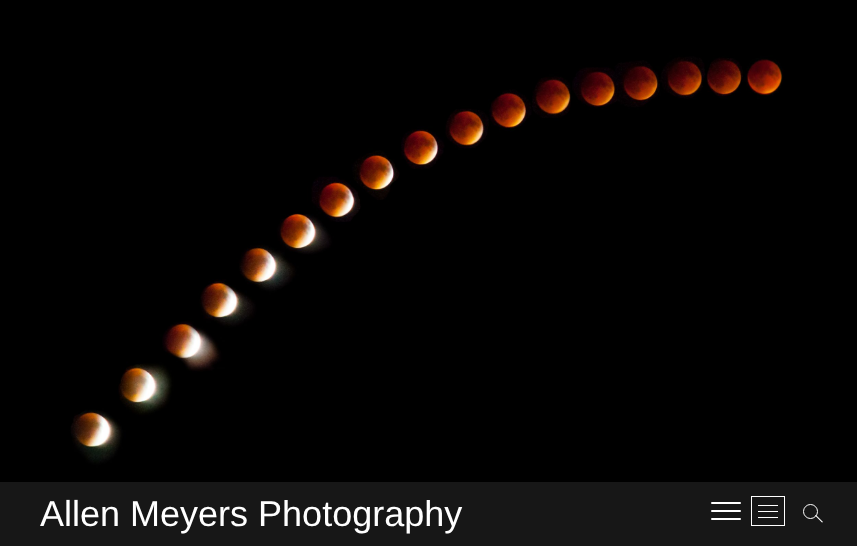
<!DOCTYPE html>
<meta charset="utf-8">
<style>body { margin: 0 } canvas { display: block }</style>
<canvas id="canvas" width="857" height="553"></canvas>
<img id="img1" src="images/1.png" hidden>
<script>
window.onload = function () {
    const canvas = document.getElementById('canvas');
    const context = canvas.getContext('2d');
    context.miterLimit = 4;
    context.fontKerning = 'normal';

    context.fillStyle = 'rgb(255, 255, 255)';
    context.fillRect(0, 0, 857, 553);
    context.drawImage(document.getElementById('img1'), 0, 0, 857, 482);
    context.fillStyle = 'rgb(23, 23, 23)';
    context.fillRect(0, 482, 857, 64);
    context.fillStyle = 'rgb(255, 255, 255)';
    context.beginPath();
    context.roundRect(711, 510, 30, 2, 1);
    context.fill();
    context.beginPath();
    context.roundRect(711, 502, 30, 2, 1);
    context.fill();
    context.beginPath();
    context.roundRect(711, 518, 30, 2, 1);
    context.fill();
    context.strokeStyle = 'rgb(255, 255, 255)';
    context.strokeRect(751.5, 496.5, 33, 29);
    context.fillRect(758, 511, 20, 1);
    context.fillRect(758, 505, 20, 1);
    context.fillRect(758, 517, 20, 1);
    context.beginPath();
    context.arc(810.5, 511.5, 7, 0, 2 * Math.PI);
    context.stroke();
    context.beginPath();
    context.moveTo(815, 515.5);
    context.lineTo(816, 515);
    context.lineTo(823, 522);
    context.lineTo(822, 522.5);
    context.closePath();
    context.fill();
    context.font = '36px Liberation Sans';
    context.fillText('Allen Meyers Photography', 40, 526);
};
</script>
